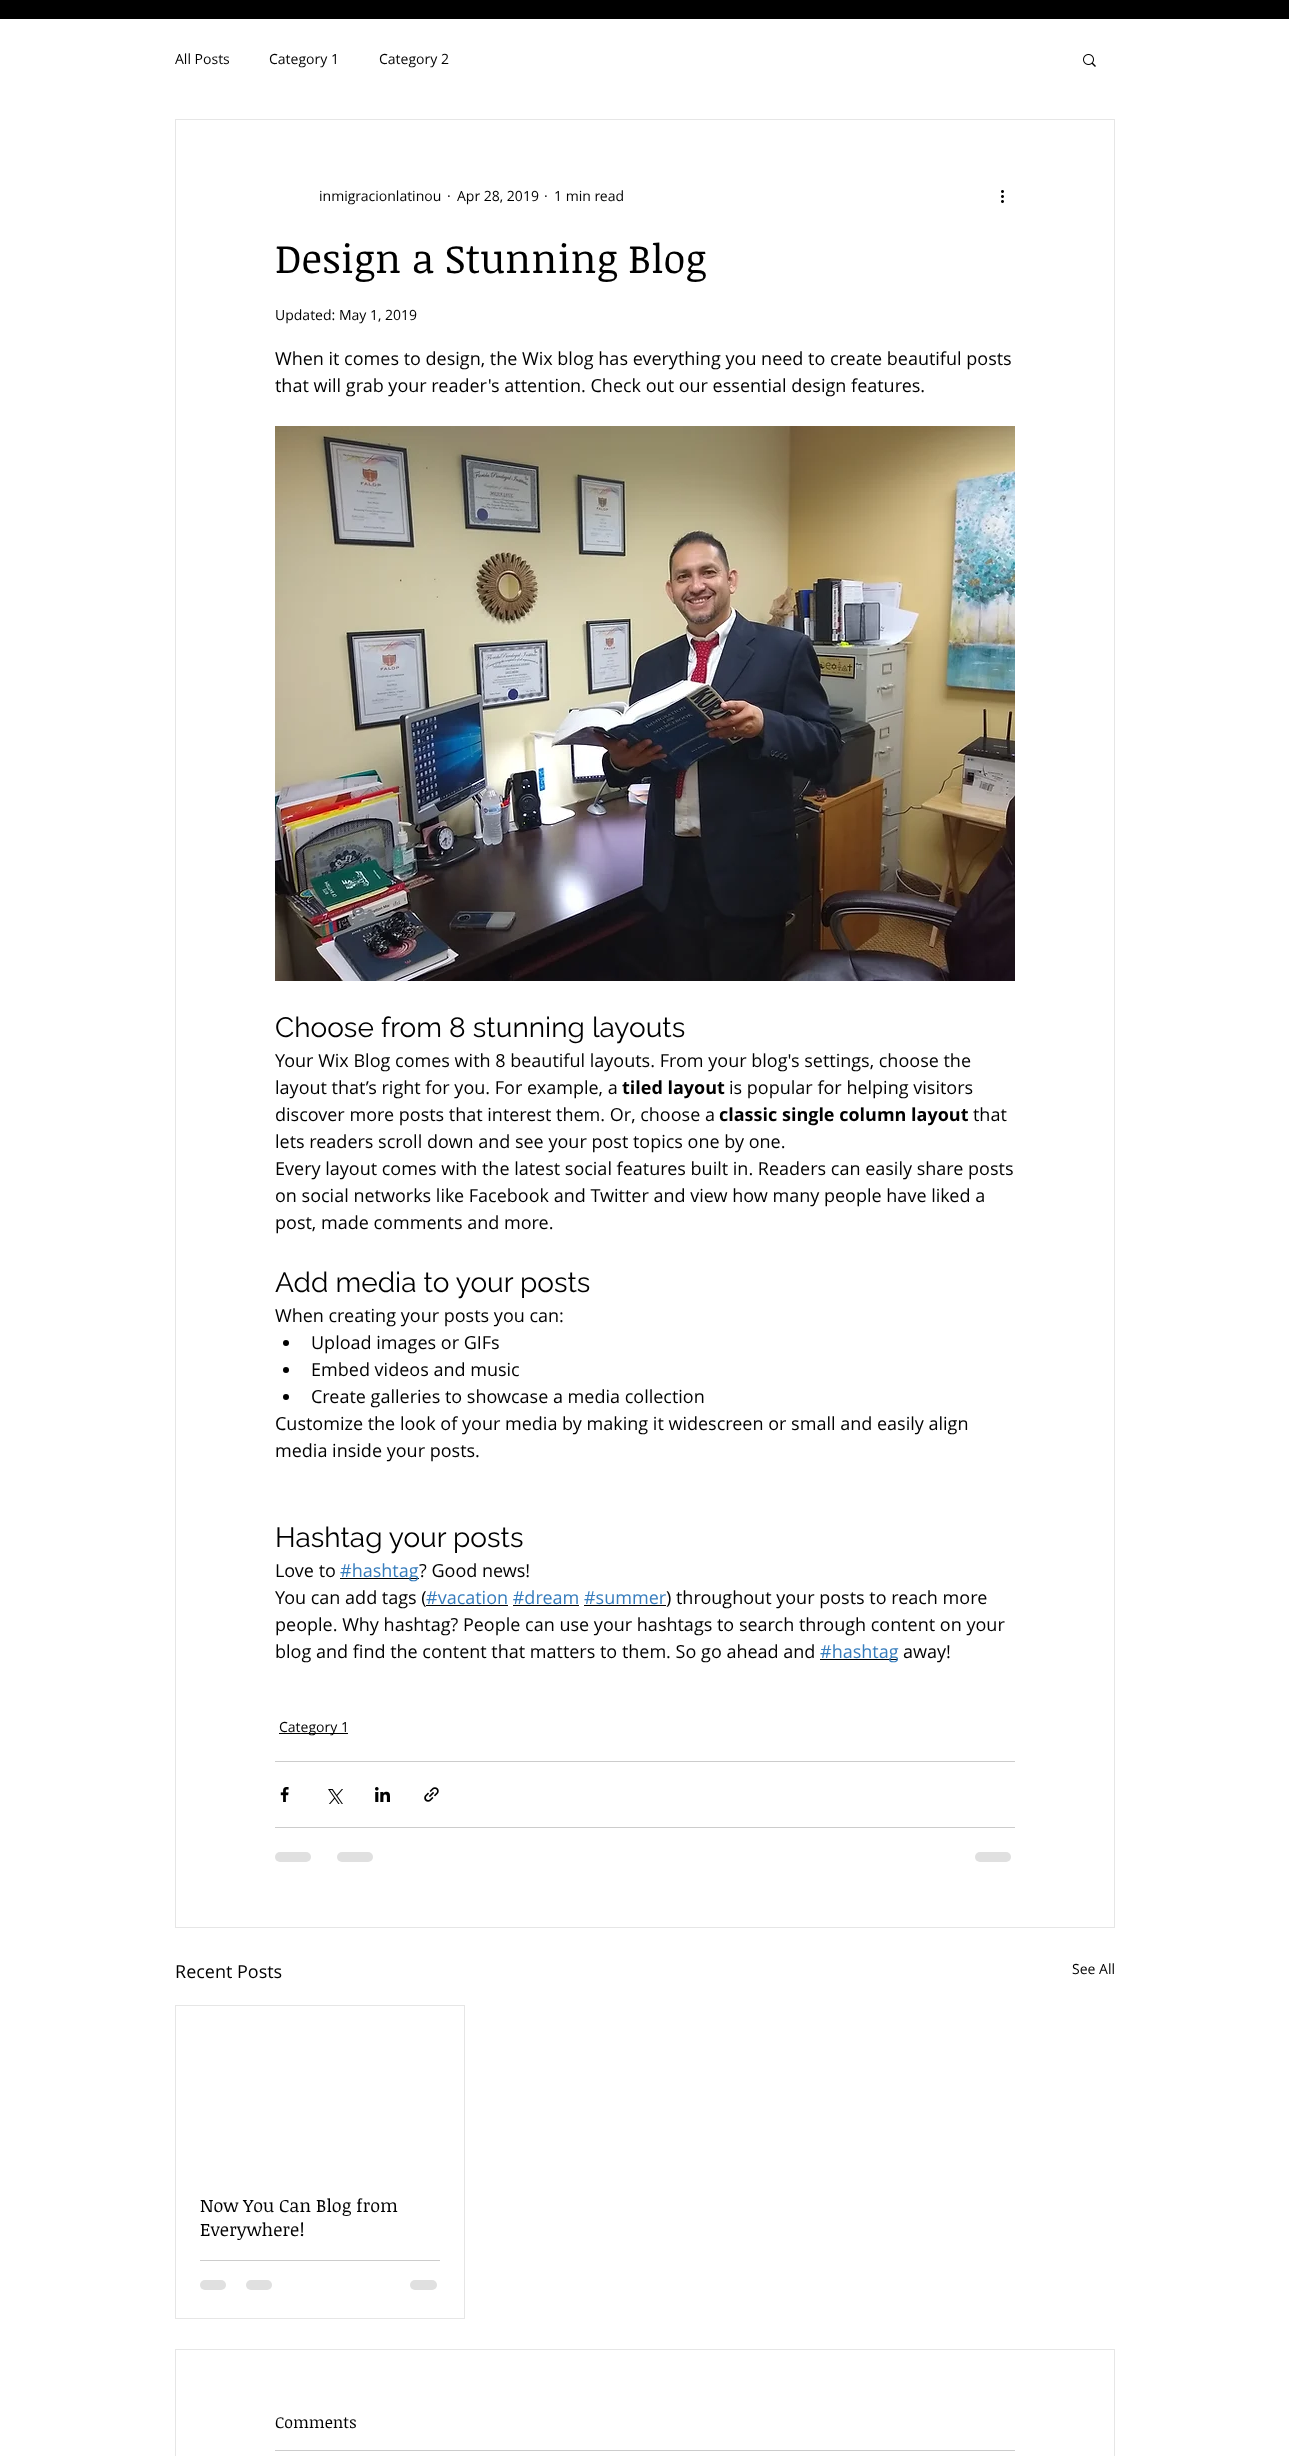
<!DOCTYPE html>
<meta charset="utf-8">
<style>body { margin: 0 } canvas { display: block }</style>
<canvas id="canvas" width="1289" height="2456"></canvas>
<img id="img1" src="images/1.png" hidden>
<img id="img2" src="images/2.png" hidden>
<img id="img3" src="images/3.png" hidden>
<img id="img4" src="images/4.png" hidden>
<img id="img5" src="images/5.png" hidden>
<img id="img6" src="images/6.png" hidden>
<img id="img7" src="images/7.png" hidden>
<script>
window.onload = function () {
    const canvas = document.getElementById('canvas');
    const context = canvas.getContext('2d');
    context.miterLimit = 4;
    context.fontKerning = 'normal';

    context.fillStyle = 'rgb(255, 255, 255)';
    context.fillRect(0, 0, 1289, 2456);
    context.fillStyle = 'rgb(0, 0, 0)';
    context.fillRect(0, 0, 1289, 19);
    context.drawImage(document.getElementById('img1'), 1083, 54, 13, 13);
    context.strokeStyle = 'rgb(230, 230, 230)';
    context.strokeRect(175.5, 119.5, 939, 1808);
    context.drawImage(document.getElementById('img2'), 1001, 190, 3, 13);
    context.drawImage(document.getElementById('img3'), 275, 426, 740, 555);
    context.beginPath();
    context.arc(286, 1343, 3, 0, 2 * Math.PI);
    context.fill();
    context.beginPath();
    context.arc(286, 1370, 3, 0, 2 * Math.PI);
    context.fill();
    context.beginPath();
    context.arc(286, 1397, 3, 0, 2 * Math.PI);
    context.fill();
    context.fillRect(340, 1578, 79, 1);
    context.fillRect(426, 1605, 82, 1);
    context.fillRect(513, 1605, 66, 1);
    context.fillRect(584, 1605, 82, 1);
    context.fillRect(820, 1659, 78, 1);
    context.fillRect(279, 1733, 69, 1);
    context.fillStyle = 'rgb(204, 204, 204)';
    context.fillRect(275, 1761, 740, 1);
    context.drawImage(document.getElementById('img4'), 280, 1787, 9, 15);
    context.drawImage(document.getElementById('img5'), 328, 1789, 15, 15);
    context.drawImage(document.getElementById('img6'), 375, 1787, 15, 15);
    context.drawImage(document.getElementById('img7'), 424, 1787, 15, 15);
    context.fillRect(275, 1827, 740, 1);
    context.fillStyle = 'rgb(224, 224, 224)';
    context.beginPath();
    context.roundRect(275, 1852, 36, 10, 5);
    context.fill();
    context.beginPath();
    context.roundRect(337, 1852, 36, 10, 5);
    context.fill();
    context.beginPath();
    context.roundRect(975, 1852, 36, 10, 5);
    context.fill();
    context.strokeRect(175.5, 2005.5, 289, 313);
    context.fillStyle = 'rgb(204, 204, 204)';
    context.fillRect(200, 2260, 240, 1);
    context.fillStyle = 'rgb(224, 224, 224)';
    context.beginPath();
    context.roundRect(200, 2280, 26, 10, 5);
    context.fill();
    context.beginPath();
    context.roundRect(246, 2280, 26, 10, 5);
    context.fill();
    context.beginPath();
    context.roundRect(410, 2280, 27, 10, 5);
    context.fill();
    context.strokeRect(175.5, 2349.5, 939, 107);
    context.fillStyle = 'rgb(204, 204, 204)';
    context.fillRect(275, 2450, 740, 1);
    context.font = '14px Open Sans';
    context.fillStyle = 'rgb(0, 0, 0)';
    context.fillText('All Posts', 175, 64);
    context.fillText('Category 1', 269, 64);
    context.fillText('Category 2', 379, 64);
    context.fillText('inmigracionlatinou', 319, 201);
    context.fillText('·', 447, 201);
    context.fillText('Apr 28, 2019', 457, 201);
    context.fillText('·', 544, 201);
    context.fillText('1 min read', 554, 201);
    context.font = '40px Noticia Text';
    context.fillText('Design a Stunning Blog', 275, 273);
    context.font = '14px Open Sans';
    context.fillText('Updated: May 1, 2019', 275, 320);
    context.font = '18px Open Sans';
    context.fillText('When it comes to design, the Wix blog has everything you need to create beautiful posts', 275, 365);
    context.fillText('that will grab your reader\'s attention. Check out our essential design features.', 275, 392);
    context.font = '28px Raleway';
    context.fillText('Choose from 8 stunning layouts', 275, 1037);
    context.font = '18px Open Sans';
    context.fillText('Your Wix Blog comes with 8 beautiful layouts. From your blog\'s settings, choose the', 275, 1067);
    context.fillText('layout that’s right for you. For example, a', 275, 1094);
    context.font = 'bold 18px Open Sans';
    context.fillText('tiled layout', 622, 1094);
    context.font = '18px Open Sans';
    context.fillText('is popular for helping visitors', 729, 1094);
    context.fillText('discover more posts that interest them. Or, choose a', 275, 1121);
    context.font = 'bold 18px Open Sans';
    context.fillText('classic single column layout', 719, 1121);
    context.font = '18px Open Sans';
    context.fillText('that', 973, 1121);
    context.fillText('lets readers scroll down and see your post topics one by one.', 275, 1148);
    context.fillText('Every layout comes with the latest social features built in. Readers can easily share posts', 275, 1175);
    context.fillText('on social networks like Facebook and Twitter and view how many people have liked a', 275, 1202);
    context.fillText('post, made comments and more.', 275, 1229);
    context.font = '28px Raleway';
    context.fillText('Add media to your posts', 275, 1292);
    context.font = '18px Open Sans';
    context.fillText('When creating your posts you can:', 275, 1322);
    context.fillText('Upload images or GIFs', 311, 1349);
    context.fillText('Embed videos and music', 311, 1376);
    context.fillText('Create galleries to showcase a media collection', 311, 1403);
    context.fillText('Customize the look of your media by making it widescreen or small and easily align', 275, 1430);
    context.fillText('media inside your posts.', 275, 1457);
    context.font = '28px Raleway';
    context.fillText('Hashtag your posts', 275, 1547);
    context.font = '18px Open Sans';
    context.fillText('Love to', 275, 1577);
    context.fillStyle = 'rgb(55, 125, 189)';
    context.fillText('#hashtag', 340, 1577);
    context.fillStyle = 'rgb(0, 0, 0)';
    context.fillText('? Good news!', 419, 1577);
    context.fillText('You can add tags (', 275, 1604);
    context.fillStyle = 'rgb(55, 125, 189)';
    context.fillText('#vacation #dream #summer', 426, 1604);
    context.fillStyle = 'rgb(0, 0, 0)';
    context.fillText(') throughout your posts to reach more', 666, 1604);
    context.fillText('people. Why hashtag? People can use your hashtags to search through content on your', 275, 1631);
    context.fillText('blog and find the content that matters to them. So go ahead and', 275, 1658);
    context.fillStyle = 'rgb(55, 125, 189)';
    context.fillText('#hashtag', 820, 1658);
    context.fillStyle = 'rgb(0, 0, 0)';
    context.fillText('away!', 903, 1658);
    context.font = '14px Open Sans';
    context.fillText('Category 1', 279, 1732);
    context.font = '18px Open Sans';
    context.fillText('Recent Posts', 175, 1978);
    context.font = '14px Open Sans';
    context.fillText('See All', 1072, 1974);
    context.font = '18px Noticia Text';
    context.fillText('Now You Can Blog from', 200, 2212);
    context.fillText('Everywhere!', 200, 2236);
    context.font = '16px Noticia Text';
    context.fillText('Comments', 275, 2428);
};
</script>
